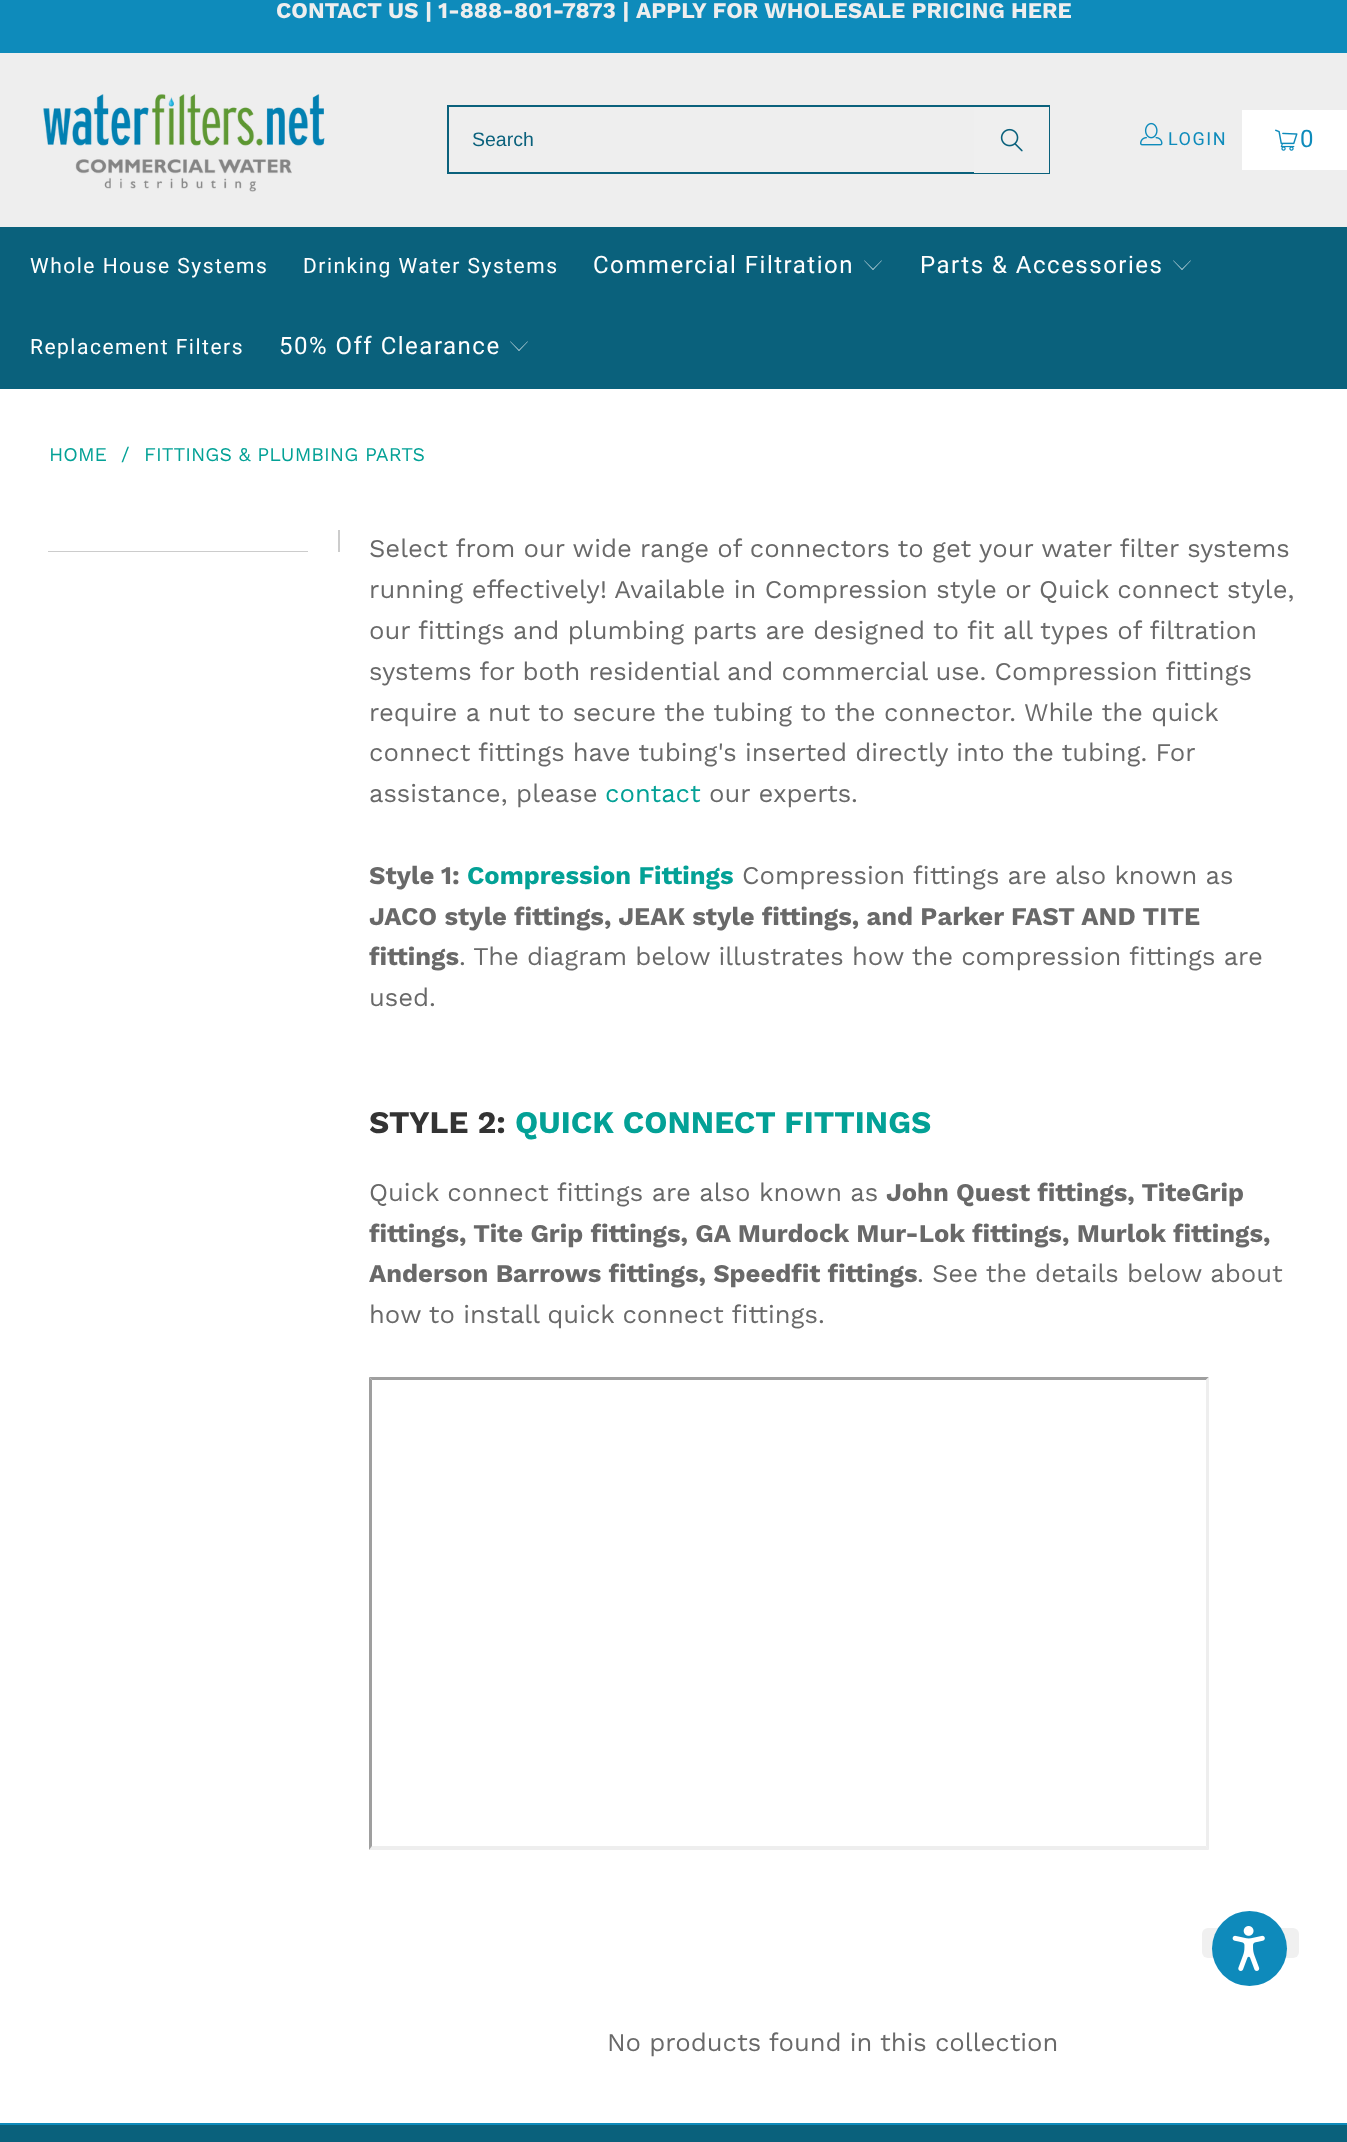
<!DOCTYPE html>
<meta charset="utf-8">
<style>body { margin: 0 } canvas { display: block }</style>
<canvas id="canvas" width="1347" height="2142"></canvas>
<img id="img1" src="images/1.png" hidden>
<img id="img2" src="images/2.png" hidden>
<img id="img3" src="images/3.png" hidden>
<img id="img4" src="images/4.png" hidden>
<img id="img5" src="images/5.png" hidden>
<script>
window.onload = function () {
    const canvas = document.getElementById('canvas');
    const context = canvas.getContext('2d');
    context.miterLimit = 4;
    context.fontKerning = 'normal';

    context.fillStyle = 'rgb(238, 238, 238)';
    context.fillRect(0, 0, 1347, 2142);
    context.fillStyle = 'rgb(14, 139, 187)';
    context.fillRect(0, 0, 1347, 53);
    context.drawImage(document.getElementById('img1'), 43, 94, 282, 98);
    context.strokeStyle = 'rgb(10, 97, 124)';
    context.lineWidth = 2;
    context.strokeRect(448, 106, 601, 67);
    context.fillStyle = 'rgb(239, 239, 239)';
    context.fillRect(974, 107, 75, 66);
    context.drawImage(document.getElementById('img2'), 1000, 128, 23, 24);
    context.drawImage(document.getElementById('img3'), 1140, 122, 23, 24);
    context.fillStyle = 'rgb(255, 255, 255)';
    context.fillRect(1242, 110, 105, 60);
    context.drawImage(document.getElementById('img4'), 1275, 129, 23, 22);
    context.fillStyle = 'rgb(10, 97, 124)';
    context.fillRect(0, 227, 1347, 162);
    context.fillStyle = 'rgb(255, 255, 255)';
    context.beginPath();
    context.moveTo(873, 270);
    context.lineTo(864, 260.5);
    context.lineTo(864.5, 260.5);
    context.lineTo(873, 269);
    context.lineTo(881.5, 260.5);
    context.lineTo(882, 260.5);
    context.closePath();
    context.fill();
    context.beginPath();
    context.moveTo(1182, 270);
    context.lineTo(1173, 260.5);
    context.lineTo(1173.5, 260.5);
    context.lineTo(1182, 269);
    context.lineTo(1190.5, 260.5);
    context.lineTo(1191, 260.5);
    context.closePath();
    context.fill();
    context.beginPath();
    context.moveTo(519, 351);
    context.lineTo(510, 341.5);
    context.lineTo(510.5, 341.5);
    context.lineTo(519, 350);
    context.lineTo(527.5, 341.5);
    context.lineTo(528, 341.5);
    context.closePath();
    context.fill();
    context.fillRect(0, 389, 1347, 1734);
    context.fillStyle = 'rgb(204, 204, 204)';
    context.fillRect(338, 530, 2, 22);
    context.fillRect(48, 551, 260, 1);
    context.fillStyle = 'rgb(159, 159, 159)';
    context.beginPath();
    context.moveTo(369, 1377);
    context.lineTo(1209, 1377);
    context.lineTo(1206, 1380);
    context.lineTo(372, 1380);
    context.closePath();
    context.fill();
    context.fillStyle = 'rgb(238, 238, 238)';
    context.beginPath();
    context.moveTo(1209, 1377);
    context.lineTo(1209, 1850);
    context.lineTo(1206, 1846);
    context.lineTo(1206, 1380);
    context.closePath();
    context.fill();
    context.beginPath();
    context.moveTo(1209, 1850);
    context.lineTo(369, 1850);
    context.lineTo(372, 1846);
    context.lineTo(1206, 1846);
    context.closePath();
    context.fill();
    context.fillStyle = 'rgb(159, 159, 159)';
    context.beginPath();
    context.moveTo(369, 1850);
    context.lineTo(369, 1377);
    context.lineTo(372, 1380);
    context.lineTo(372, 1846);
    context.closePath();
    context.fill();
    context.fillStyle = 'rgb(240, 240, 240)';
    context.beginPath();
    context.roundRect(1202, 1928, 97, 30, 6);
    context.fill();
    context.fillStyle = 'rgb(14, 138, 187)';
    context.beginPath();
    context.arc(1249.5, 1948.5, 37.5, 0, 2 * Math.PI);
    context.fill();
    context.drawImage(document.getElementById('img5'), 1232, 1926, 33, 45);
    context.fillStyle = 'rgb(10, 97, 124)';
    context.fillRect(0, 2125, 1347, 17);
    context.fillStyle = 'rgb(14, 139, 187)';
    context.fillRect(0, 2123, 1347, 2);
    context.font = 'bold 22.5px Work Sans';
    context.fillStyle = 'rgb(238, 238, 238)';
    context.fillText('CONTACT US', 276, 18);
    context.fillText('|', 425, 18);
    context.fillText('1-888-801-7873 |', 438, 18);
    context.fillText('APPLY FOR WHOLESALE PRICING HERE', 636, 18);
    context.font = '19.5px Liberation Sans';
    context.fillStyle = 'rgb(10, 97, 124)';
    context.fillText('Search', 472, 146);
    context.letterSpacing = '1.5px';
    context.font = '18px Roboto';
    context.fillStyle = 'rgb(14, 139, 187)';
    context.fillText('LOGIN', 1168, 145);
    context.font = '24px Roboto';
    context.fillText('0', 1300, 147);
    context.font = '21px Roboto';
    context.fillStyle = 'rgb(255, 255, 255)';
    context.fillText('Whole House Systems', 30, 273);
    context.fillText('Drinking Water Systems', 303, 273);
    context.font = '24px Roboto';
    context.fillText('Commercial Filtration', 593, 273);
    context.fillText('Parts & Accessories', 920, 273);
    context.font = '21px Roboto';
    context.fillText('Replacement Filters', 30, 354);
    context.font = '24px Roboto';
    context.fillText('50% Off Clearance', 279, 354);
    context.letterSpacing = '0px';
    context.font = '19.5px Work Sans';
    context.fillStyle = 'rgb(3, 161, 150)';
    context.fillText('HOME', 49, 461);
    context.fillText('/', 121, 461);
    context.fillText('FITTINGS & PLUMBING PARTS', 144, 461);
    context.wordSpacing = '-0.5px';
    context.font = '25.5px Work Sans';
    context.fillStyle = 'rgb(105, 105, 105)';
    context.fillText('Select from our wide range of connectors to get your water filter systems', 369, 557);
    context.wordSpacing = '-0.25px';
    context.fillText('running effectively! Available in Compression style or Quick connect style,', 369, 598);
    context.fillText('our fittings and plumbing parts are designed to fit all types of filtration', 369, 639);
    context.wordSpacing = '-0.5px';
    context.fillText('systems for both residential and commercial use. Compression fittings', 369, 680);
    context.wordSpacing = '-0.25px';
    context.fillText('require a nut to secure the tubing to the connector. While the quick', 369, 721);
    context.wordSpacing = '-0.5px';
    context.fillText('connect fittings have tubing\'s inserted directly into the tubing. For', 369, 761);
    context.wordSpacing = '0px';
    context.fillText('assistance, please', 369, 802);
    context.fillStyle = 'rgb(3, 161, 150)';
    context.fillText('contact', 605, 802);
    context.wordSpacing = '-0.25px';
    context.fillStyle = 'rgb(105, 105, 105)';
    context.fillText('our experts.', 709, 802);
    context.wordSpacing = '-0.5px';
    context.font = 'bold 25.5px Work Sans';
    context.fillText('Style 1:', 369, 884);
    context.wordSpacing = '0px';
    context.fillStyle = 'rgb(3, 161, 150)';
    context.fillText('Compression Fittings', 467, 884);
    context.wordSpacing = '-0.5px';
    context.font = '25.5px Work Sans';
    context.fillStyle = 'rgb(105, 105, 105)';
    context.fillText('Compression fittings are also known as', 742, 884);
    context.wordSpacing = '0px';
    context.font = 'bold 25.5px Work Sans';
    context.fillText('JACO style fittings, JEAK style fittings, and Parker FAST AND TITE', 369, 925);
    context.fillText('fittings', 369, 965);
    context.wordSpacing = '-0.5px';
    context.font = '25.5px Work Sans';
    context.fillText('. The diagram below illustrates how the compression fittings are', 459, 965);
    context.wordSpacing = '0px';
    context.fillText('used.', 369, 1006);
    context.font = 'bold 31.5px Work Sans';
    context.fillStyle = 'rgb(51, 51, 51)';
    context.fillText('STYLE 2:', 369, 1133);
    context.fillStyle = 'rgb(3, 161, 150)';
    context.fillText('QUICK CONNECT FITTINGS', 515, 1133);
    context.wordSpacing = '-0.25px';
    context.font = '25.5px Work Sans';
    context.fillStyle = 'rgb(105, 105, 105)';
    context.fillText('Quick connect fittings are also known as', 369, 1201);
    context.wordSpacing = '0px';
    context.font = 'bold 25.5px Work Sans';
    context.fillText('John Quest fittings, TiteGrip', 886, 1201);
    context.wordSpacing = '0.1px';
    context.fillText('fittings, Tite Grip fittings, GA Murdock Mur-Lok fittings, Murlok fittings,', 369, 1242);
    context.wordSpacing = '0px';
    context.fillText('Anderson Barrows fittings, Speedfit fittings', 369, 1282);
    context.wordSpacing = '-0.5px';
    context.font = '25.5px Work Sans';
    context.fillText('. See the details below about', 917, 1282);
    context.fillText('how to install quick connect fittings.', 369, 1323);
    context.fillText('No products found in this collection', 607, 2051);
};
</script>
